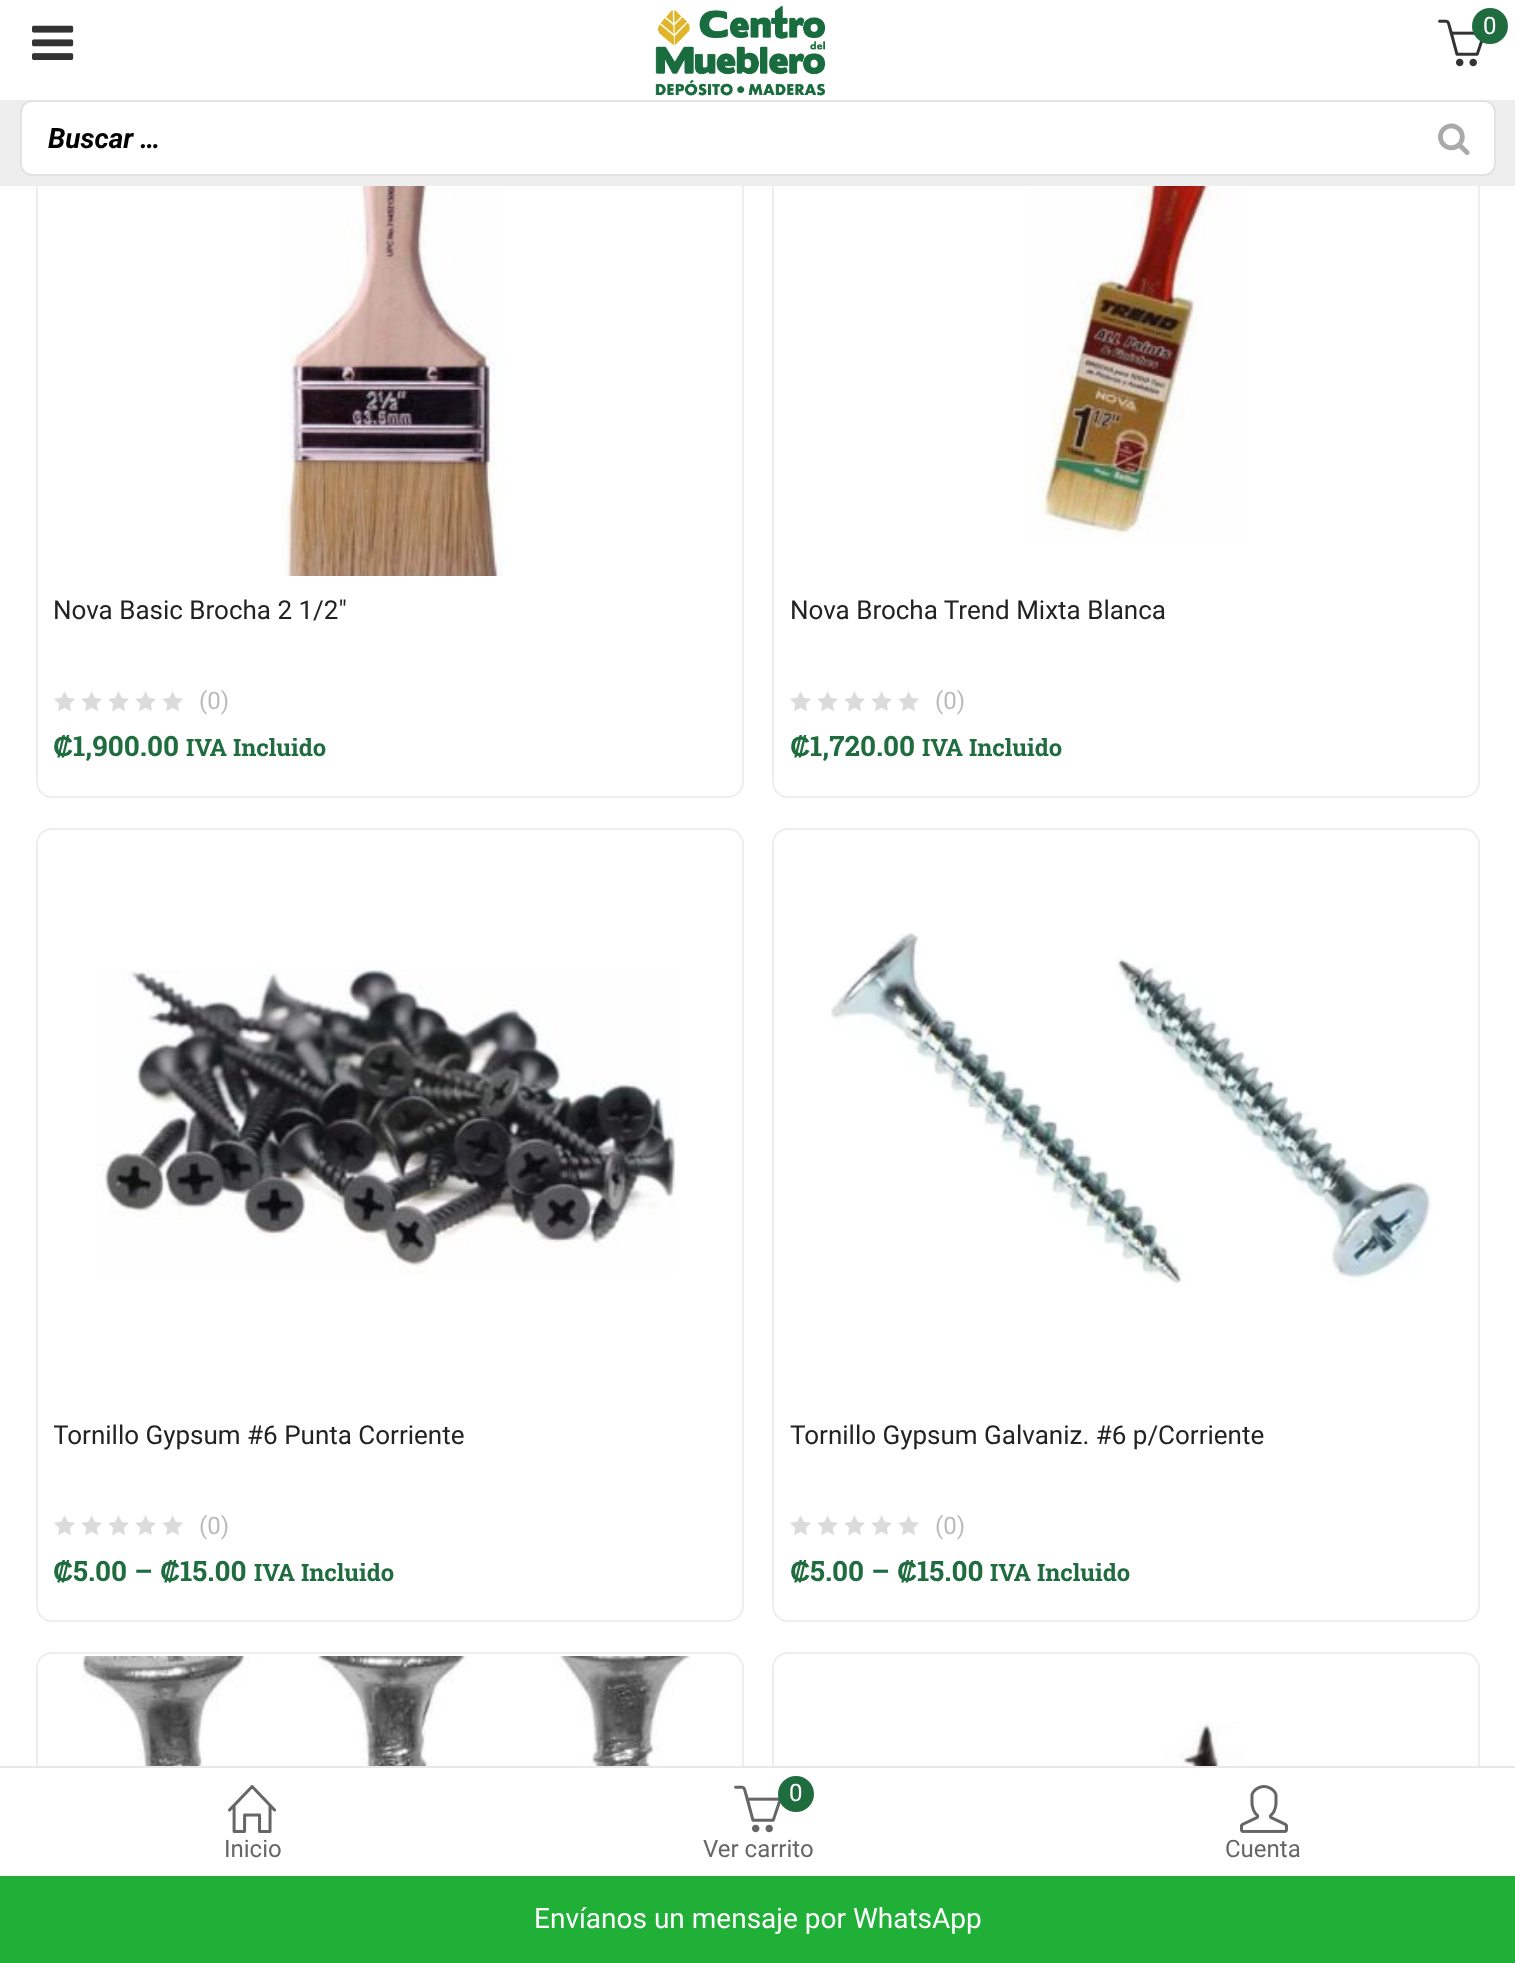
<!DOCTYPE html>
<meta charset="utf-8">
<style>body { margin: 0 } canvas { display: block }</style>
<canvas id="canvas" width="1515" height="1963"></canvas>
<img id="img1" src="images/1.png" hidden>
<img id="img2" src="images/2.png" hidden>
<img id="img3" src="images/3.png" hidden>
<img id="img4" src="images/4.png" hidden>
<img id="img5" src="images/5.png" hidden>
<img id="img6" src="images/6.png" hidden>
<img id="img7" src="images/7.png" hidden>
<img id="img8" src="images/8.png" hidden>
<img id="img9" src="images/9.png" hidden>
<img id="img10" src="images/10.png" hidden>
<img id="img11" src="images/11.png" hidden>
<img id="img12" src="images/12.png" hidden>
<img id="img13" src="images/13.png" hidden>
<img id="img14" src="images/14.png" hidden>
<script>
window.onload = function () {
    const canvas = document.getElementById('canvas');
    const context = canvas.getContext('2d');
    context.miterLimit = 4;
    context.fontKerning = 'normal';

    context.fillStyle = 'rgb(255, 255, 255)';
    context.fillRect(0, 0, 1515, 1963);
    context.beginPath();
    context.roundRect(37, 3, 706, 794, 15);
    context.strokeStyle = 'rgb(238, 238, 238)';
    context.lineWidth = 2;
    context.stroke();
    context.beginPath();
    context.roundRect(773, 3, 706, 794, 15);
    context.stroke();
    context.fillRect(36, 2, 1444, 98);
    context.drawImage(document.getElementById('img1'), 32, 25, 42, 35);
    context.drawImage(document.getElementById('img2'), 655, 5, 170, 91);
    context.drawImage(document.getElementById('img3'), 1438, 19, 45, 48);
    context.fillStyle = 'rgb(31, 108, 63)';
    context.beginPath();
    context.arc(1490, 26, 18, 0, 2 * Math.PI);
    context.fill();
    context.fillStyle = 'rgb(238, 238, 238)';
    context.fillRect(0, 100, 1515, 86);
    context.fillStyle = 'rgb(255, 255, 255)';
    context.beginPath();
    context.roundRect(21, 101, 1474, 74, 11);
    context.fill();
    context.strokeStyle = 'rgb(226, 226, 226)';
    context.stroke();
    context.drawImage(document.getElementById('img4'), 1438, 123, 32, 32);
    context.drawImage(document.getElementById('img5'), 281, 186, 224, 390);
    context.drawImage(document.getElementById('img6'), 54, 691, 129, 20);
    context.drawImage(document.getElementById('img7'), 1027, 186, 219, 353);
    context.drawImage(document.getElementById('img6'), 790, 691, 129, 20);
    context.beginPath();
    context.roundRect(37, 829, 706, 792, 15);
    context.strokeStyle = 'rgb(238, 238, 238)';
    context.stroke();
    context.drawImage(document.getElementById('img8'), 96, 969, 580, 305);
    context.drawImage(document.getElementById('img6'), 54, 1515, 129, 20);
    context.beginPath();
    context.roundRect(773, 829, 706, 792, 15);
    context.stroke();
    context.drawImage(document.getElementById('img9'), 831, 932, 602, 353);
    context.drawImage(document.getElementById('img6'), 790, 1515, 129, 20);
    context.beginPath();
    context.roundRect(37, 1653, 706, 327, 15);
    context.stroke();
    context.drawImage(document.getElementById('img10'), 82, 1656, 609, 110);
    context.beginPath();
    context.roundRect(773, 1653, 706, 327, 15);
    context.stroke();
    context.drawImage(document.getElementById('img11'), 1163, 1722, 83, 44);
    context.fillRect(36, 1768, 1444, 108);
    context.fillStyle = 'rgb(232, 232, 232)';
    context.fillRect(0, 1766, 1515, 2);
    context.drawImage(document.getElementById('img12'), 228, 1785, 49, 48);
    context.drawImage(document.getElementById('img13'), 734, 1785, 47, 48);
    context.fillStyle = 'rgb(31, 108, 63)';
    context.beginPath();
    context.arc(796, 1794, 18, 0, 2 * Math.PI);
    context.fill();
    context.drawImage(document.getElementById('img14'), 1240, 1785, 48, 48);
    context.fillStyle = 'rgb(32, 176, 56)';
    context.fillRect(0, 1876, 1515, 87);
    context.font = '24px Roboto';
    context.fillStyle = 'rgb(255, 255, 255)';
    context.fillText('0', 1483, 34);
    context.font = 'italic bold 28px Roboto';
    context.fillStyle = 'rgb(0, 0, 0)';
    context.fillText('Buscar …', 48, 148);
    context.font = '26px Roboto';
    context.fillStyle = 'rgb(34, 34, 34)';
    context.fillText('Nova Basic Brocha 2 1/2″', 53, 619);
    context.font = '24px Roboto';
    context.fillStyle = 'rgb(187, 187, 187)';
    context.fillText('(0)', 199, 709);
    context.font = 'bold 28px Liberation Sans';
    context.fillStyle = 'rgb(31, 108, 63)';
    context.fillText('₡', 53, 756);
    context.font = 'bold 28px Roboto Slab';
    context.fillText('1,900.00', 73, 756);
    context.font = 'bold 23.75px Roboto Slab';
    context.fillText('IVA Incluido', 186, 756);
    context.font = '26px Roboto';
    context.fillStyle = 'rgb(34, 34, 34)';
    context.fillText('Nova Brocha Trend Mixta Blanca', 790, 619);
    context.font = '24px Roboto';
    context.fillStyle = 'rgb(187, 187, 187)';
    context.fillText('(0)', 935, 709);
    context.font = 'bold 28px Liberation Sans';
    context.fillStyle = 'rgb(31, 108, 63)';
    context.fillText('₡', 790, 756);
    context.font = 'bold 28px Roboto Slab';
    context.fillText('1,720.00', 810, 756);
    context.font = 'bold 23.75px Roboto Slab';
    context.fillText('IVA Incluido', 922, 756);
    context.save();
    context.beginPath();
    context.rect(54, 1416, 672, 42);
    context.clip();
    context.font = '26px Roboto';
    context.fillStyle = 'rgb(34, 34, 34)';
    context.fillText('Tornillo Gypsum #6 Punta Corriente', 53, 1444);
    context.restore();
    context.font = '24px Roboto';
    context.fillStyle = 'rgb(187, 187, 187)';
    context.fillText('(0)', 199, 1534);
    context.font = 'bold 28px Liberation Sans';
    context.fillStyle = 'rgb(31, 108, 63)';
    context.fillText('₡', 53, 1581);
    context.font = 'bold 28px Roboto Slab';
    context.fillText('5.00 –', 73, 1581);
    context.font = 'bold 28px Liberation Sans';
    context.fillText('₡', 160, 1581);
    context.font = 'bold 28px Roboto Slab';
    context.fillText('15.00', 180, 1581);
    context.font = 'bold 23.75px Roboto Slab';
    context.fillText('IVA Incluido', 254, 1581);
    context.font = '26px Roboto';
    context.fillStyle = 'rgb(34, 34, 34)';
    context.fillText('Tornillo Gypsum Galvaniz. #6 p/Corriente', 790, 1444);
    context.font = '24px Roboto';
    context.fillStyle = 'rgb(187, 187, 187)';
    context.fillText('(0)', 935, 1534);
    context.font = 'bold 28px Liberation Sans';
    context.fillStyle = 'rgb(31, 108, 63)';
    context.fillText('₡', 790, 1581);
    context.font = 'bold 28px Roboto Slab';
    context.fillText('5.00 –', 810, 1581);
    context.font = 'bold 28px Liberation Sans';
    context.fillText('₡', 897, 1581);
    context.font = 'bold 28px Roboto Slab';
    context.fillText('15.00', 917, 1581);
    context.font = 'bold 23.75px Roboto Slab';
    context.fillText('IVA Incluido', 990, 1581);
    context.font = '24px Roboto';
    context.fillStyle = 'rgb(102, 102, 102)';
    context.fillText('Inicio', 224, 1857);
    context.fillStyle = 'rgb(255, 255, 255)';
    context.fillText('0', 789, 1801);
    context.fillStyle = 'rgb(102, 102, 102)';
    context.fillText('Ver carrito', 703, 1857);
    context.fillText('Cuenta', 1225, 1857);
    context.font = '28px Roboto';
    context.fillStyle = 'rgb(255, 255, 255)';
    context.fillText('Envíanos un mensaje por WhatsApp', 534, 1928);
};
</script>
